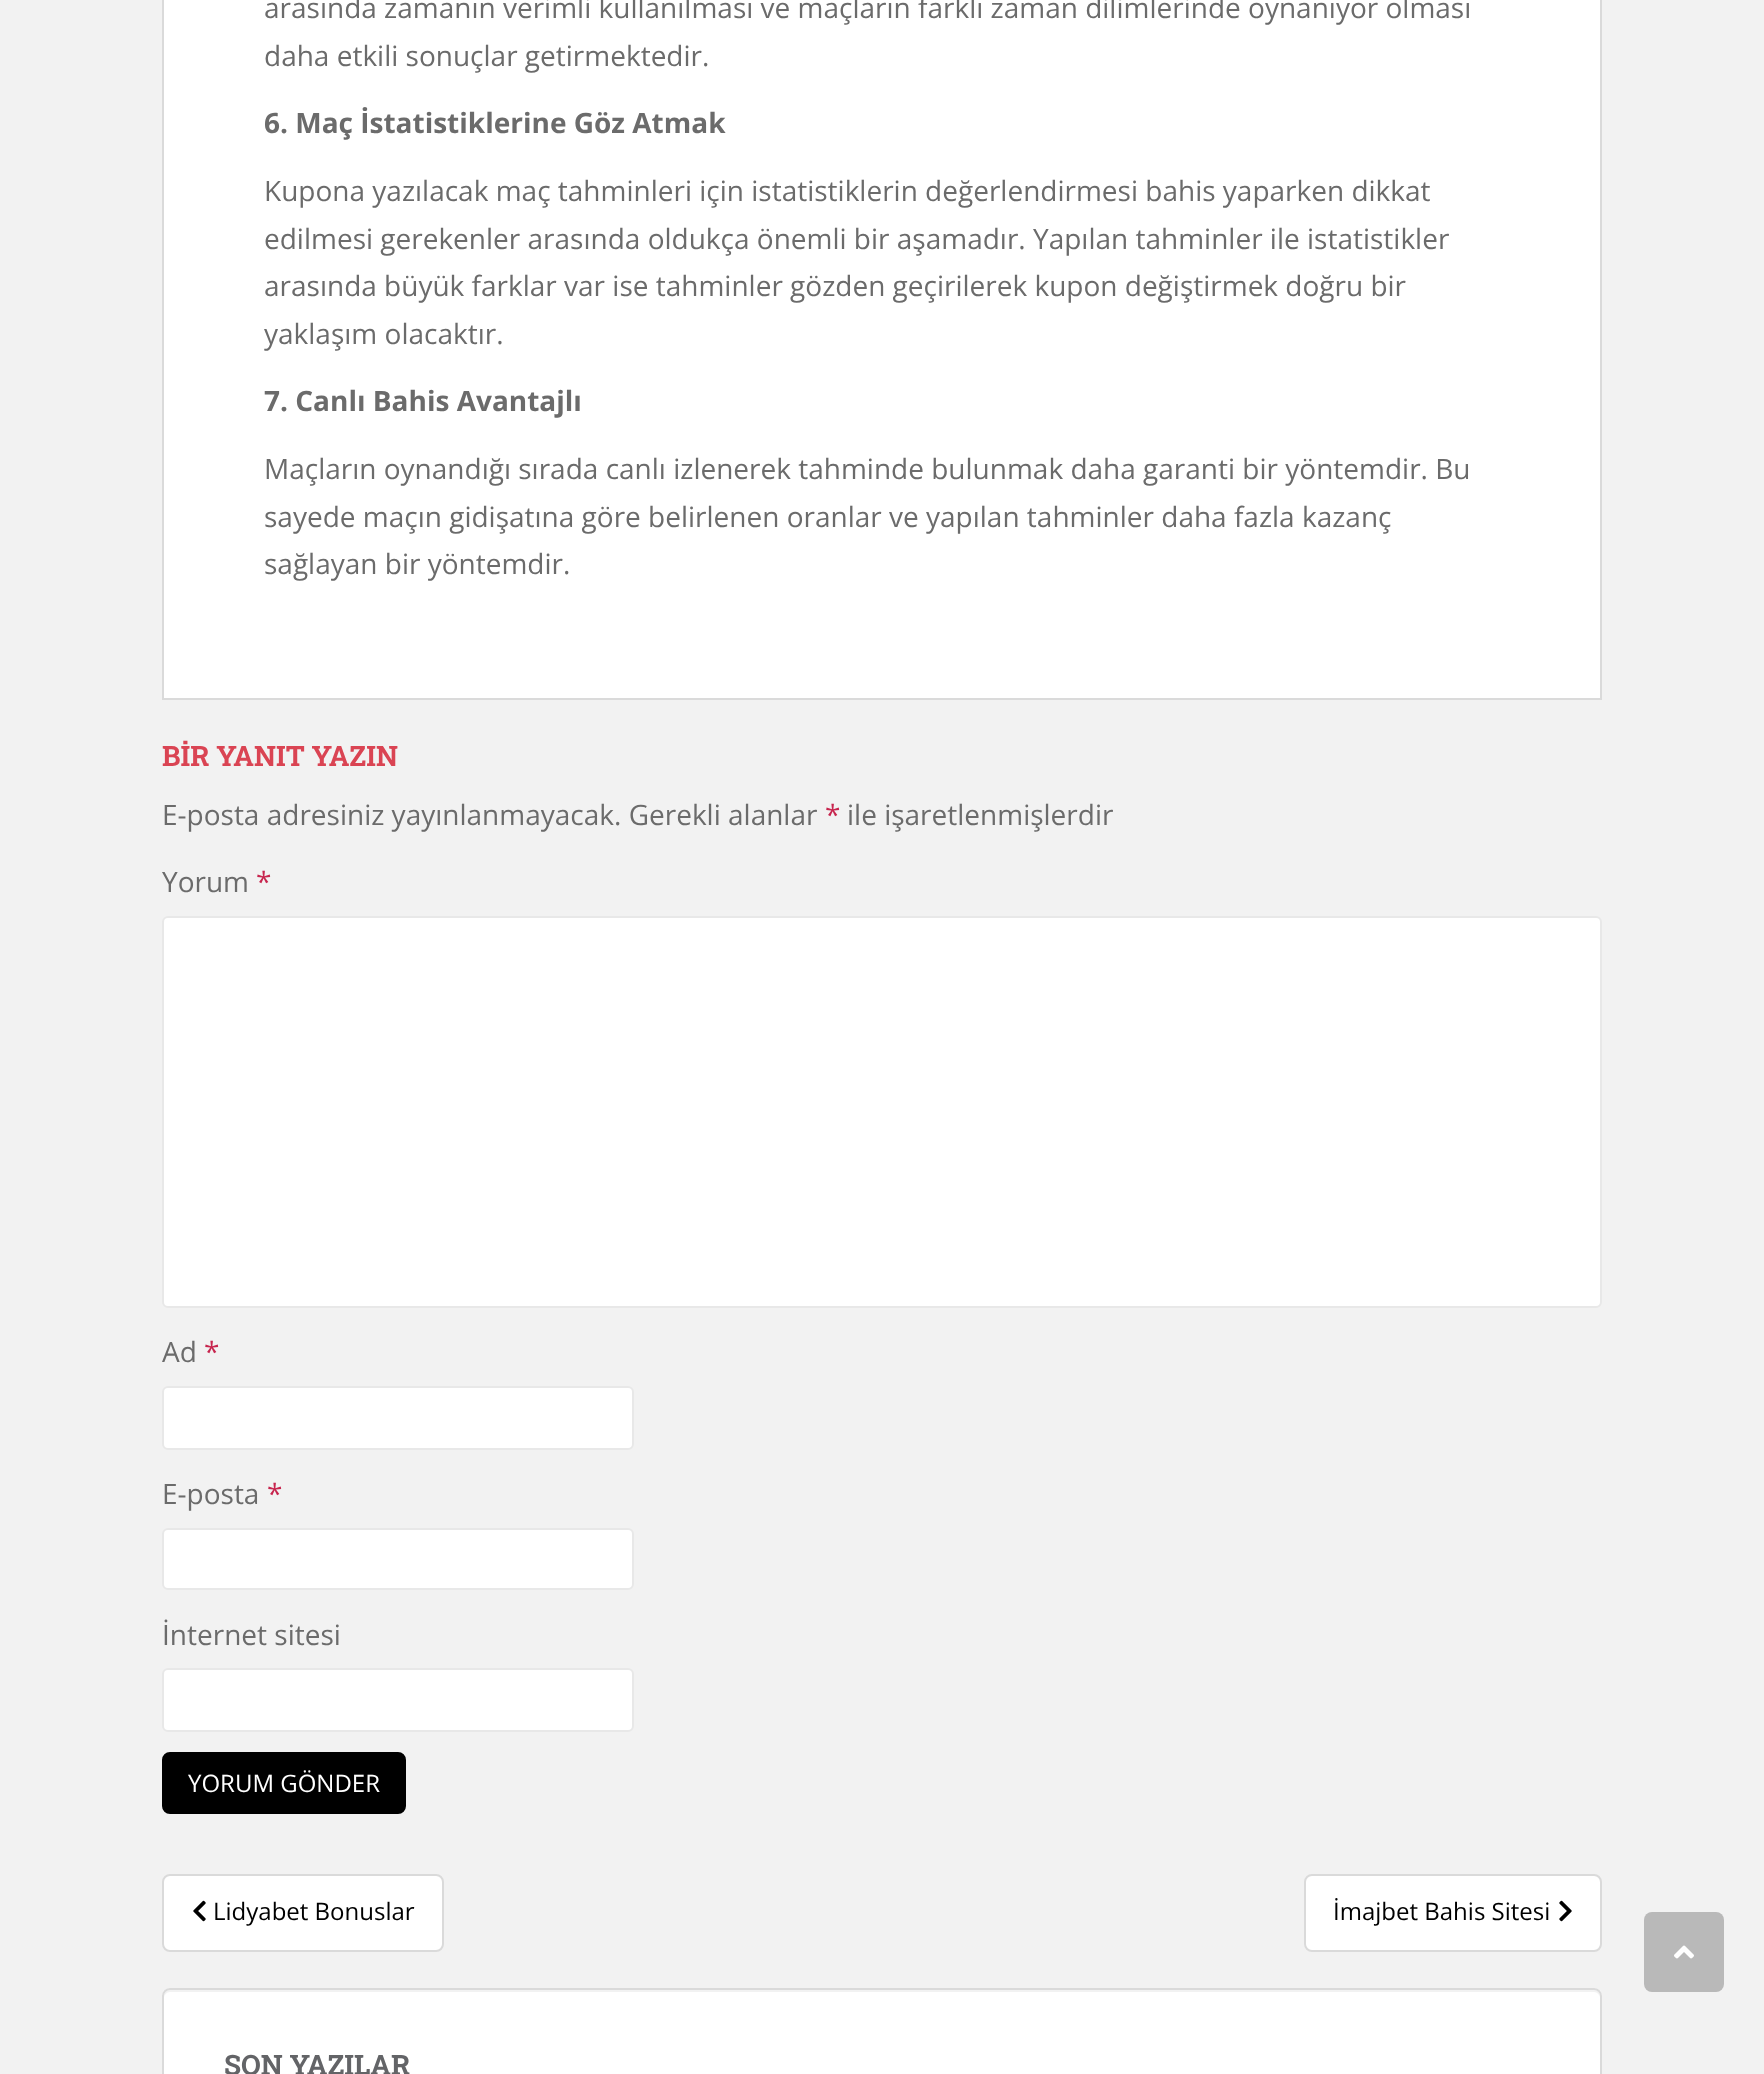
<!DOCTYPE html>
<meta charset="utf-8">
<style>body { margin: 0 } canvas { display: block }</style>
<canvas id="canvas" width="1764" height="2074"></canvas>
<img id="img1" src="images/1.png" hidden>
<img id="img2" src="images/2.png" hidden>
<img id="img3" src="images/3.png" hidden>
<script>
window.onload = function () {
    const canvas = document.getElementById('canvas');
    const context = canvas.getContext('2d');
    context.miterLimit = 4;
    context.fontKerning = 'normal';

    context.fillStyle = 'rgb(242, 242, 242)';
    context.fillRect(0, 0, 1764, 2074);
    context.fillStyle = 'rgb(255, 255, 255)';
    context.fillRect(164, 0, 1436, 698);
    context.fillStyle = 'rgb(218, 218, 218)';
    context.fillRect(1600, 0, 2, 700);
    context.fillRect(162, 698, 1440, 2);
    context.fillRect(162, 0, 2, 700);
    context.fillStyle = 'rgb(255, 255, 255)';
    context.beginPath();
    context.roundRect(163, 917, 1438, 390, 5);
    context.fill();
    context.strokeStyle = 'rgb(232, 232, 232)';
    context.lineWidth = 2;
    context.stroke();
    context.beginPath();
    context.roundRect(163, 1387, 470, 62, 5);
    context.fill();
    context.stroke();
    context.beginPath();
    context.roundRect(163, 1529, 470, 60, 5);
    context.fill();
    context.stroke();
    context.beginPath();
    context.roundRect(163, 1669, 470, 62, 5);
    context.fill();
    context.stroke();
    context.fillStyle = 'rgb(0, 0, 0)';
    context.beginPath();
    context.roundRect(163, 1753, 242, 60, 7);
    context.fill();
    context.strokeStyle = 'rgb(0, 0, 0)';
    context.stroke();
    context.fillStyle = 'rgb(255, 255, 255)';
    context.beginPath();
    context.roundRect(163, 1875, 280, 76, 7);
    context.fill();
    context.strokeStyle = 'rgb(218, 218, 218)';
    context.stroke();
    context.drawImage(document.getElementById('img1'), 193, 1900, 13, 22);
    context.beginPath();
    context.roundRect(1305, 1875, 296, 76, 7);
    context.fill();
    context.stroke();
    context.drawImage(document.getElementById('img2'), 1559, 1900, 13, 22);
    context.beginPath();
    context.roundRect(162, 1988, 1440, 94, 8);
    context.fill();
    context.fillStyle = 'rgb(242, 242, 242)';
    context.beginPath();
    context.moveTo(170, 1992);
    context.lineTo(1594, 1992);
    context.bezierCurveTo(1597, 1992, 1600, 1995, 1600, 1998);
    context.bezierCurveTo(1600, 1994, 1599, 1990, 1594, 1990);
    context.lineTo(170, 1990);
    context.bezierCurveTo(165, 1990, 164, 1994, 164, 1998);
    context.bezierCurveTo(164, 1995, 167, 1992, 170, 1992);
    context.closePath();
    context.fill();
    context.beginPath();
    context.roundRect(163, 1989, 1438, 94, 7);
    context.stroke();
    context.fillStyle = 'rgb(185, 185, 185)';
    context.beginPath();
    context.roundRect(1644, 1912, 80, 80, 8);
    context.fill();
    context.drawImage(document.getElementById('img3'), 1674, 1945, 20, 14);
    context.font = '28px Open Sans';
    context.fillStyle = 'rgb(107, 107, 107)';
    context.fillText('arasında zamanın verimli kullanılması ve maçların farklı zaman dilimlerinde oynanıyor olması', 264, 18);
    context.fillText('daha etkili sonuçlar getirmektedir.', 264, 66);
    context.font = 'bold 28px Open Sans';
    context.fillText('6. Maç İstatistiklerine Göz Atmak', 264, 133);
    context.font = '28px Open Sans';
    context.fillText('Kupona yazılacak maç tahminleri için istatistiklerin değerlendirmesi bahis yaparken dikkat', 264, 201);
    context.fillText('edilmesi gerekenler arasında oldukça önemli bir aşamadır. Yapılan tahminler ile istatistikler', 264, 249);
    context.fillText('arasında büyük farklar var ise tahminler gözden geçirilerek kupon değiştirmek doğru bir', 264, 296);
    context.fillText('yaklaşım olacaktır.', 264, 344);
    context.font = 'bold 28px Open Sans';
    context.fillText('7. Canlı Bahis Avantajlı', 264, 411);
    context.font = '28px Open Sans';
    context.fillText('Maçların oynandığı sırada canlı izlenerek tahminde bulunmak daha garanti bir yöntemdir. Bu', 264, 479);
    context.fillText('sayede maçın gidişatına göre belirlenen oranlar ve yapılan tahminler daha fazla kazanç', 264, 527);
    context.fillText('sağlayan bir yöntemdir.', 264, 574);
    context.font = 'bold 28px Roboto Slab';
    context.fillStyle = 'rgb(218, 68, 83)';
    context.fillText('BİR YANIT YAZIN', 162, 766);
    context.font = '28px Open Sans';
    context.fillStyle = 'rgb(107, 107, 107)';
    context.fillText('E-posta adresiniz yayınlanmayacak. Gerekli alanlar', 162, 825);
    context.fillStyle = 'rgb(199, 37, 78)';
    context.fillText('*', 825, 825);
    context.fillStyle = 'rgb(107, 107, 107)';
    context.fillText('ile işaretlenmişlerdir', 847, 825);
    context.fillText('Yorum', 162, 892);
    context.fillStyle = 'rgb(199, 37, 78)';
    context.fillText('*', 256, 892);
    context.fillStyle = 'rgb(107, 107, 107)';
    context.fillText('Ad', 162, 1362);
    context.fillStyle = 'rgb(199, 37, 78)';
    context.fillText('*', 204, 1362);
    context.fillStyle = 'rgb(107, 107, 107)';
    context.fillText('E-posta', 162, 1504);
    context.fillStyle = 'rgb(199, 37, 78)';
    context.fillText('*', 267, 1504);
    context.fillStyle = 'rgb(107, 107, 107)';
    context.fillText('İnternet sitesi', 162, 1645);
    context.font = '24px Open Sans';
    context.fillStyle = 'rgb(255, 255, 255)';
    context.fillText('YORUM GÖNDER', 188, 1792);
    context.fillStyle = 'rgb(0, 0, 0)';
    context.fillText('Lidyabet Bonuslar', 213, 1920);
    context.fillText('İmajbet Bahis Sitesi', 1333, 1920);
    context.font = 'bold 28px Roboto Slab';
    context.fillStyle = 'rgb(99, 100, 103)';
    context.fillText('SON YAZILAR', 224, 2075);
};
</script>
